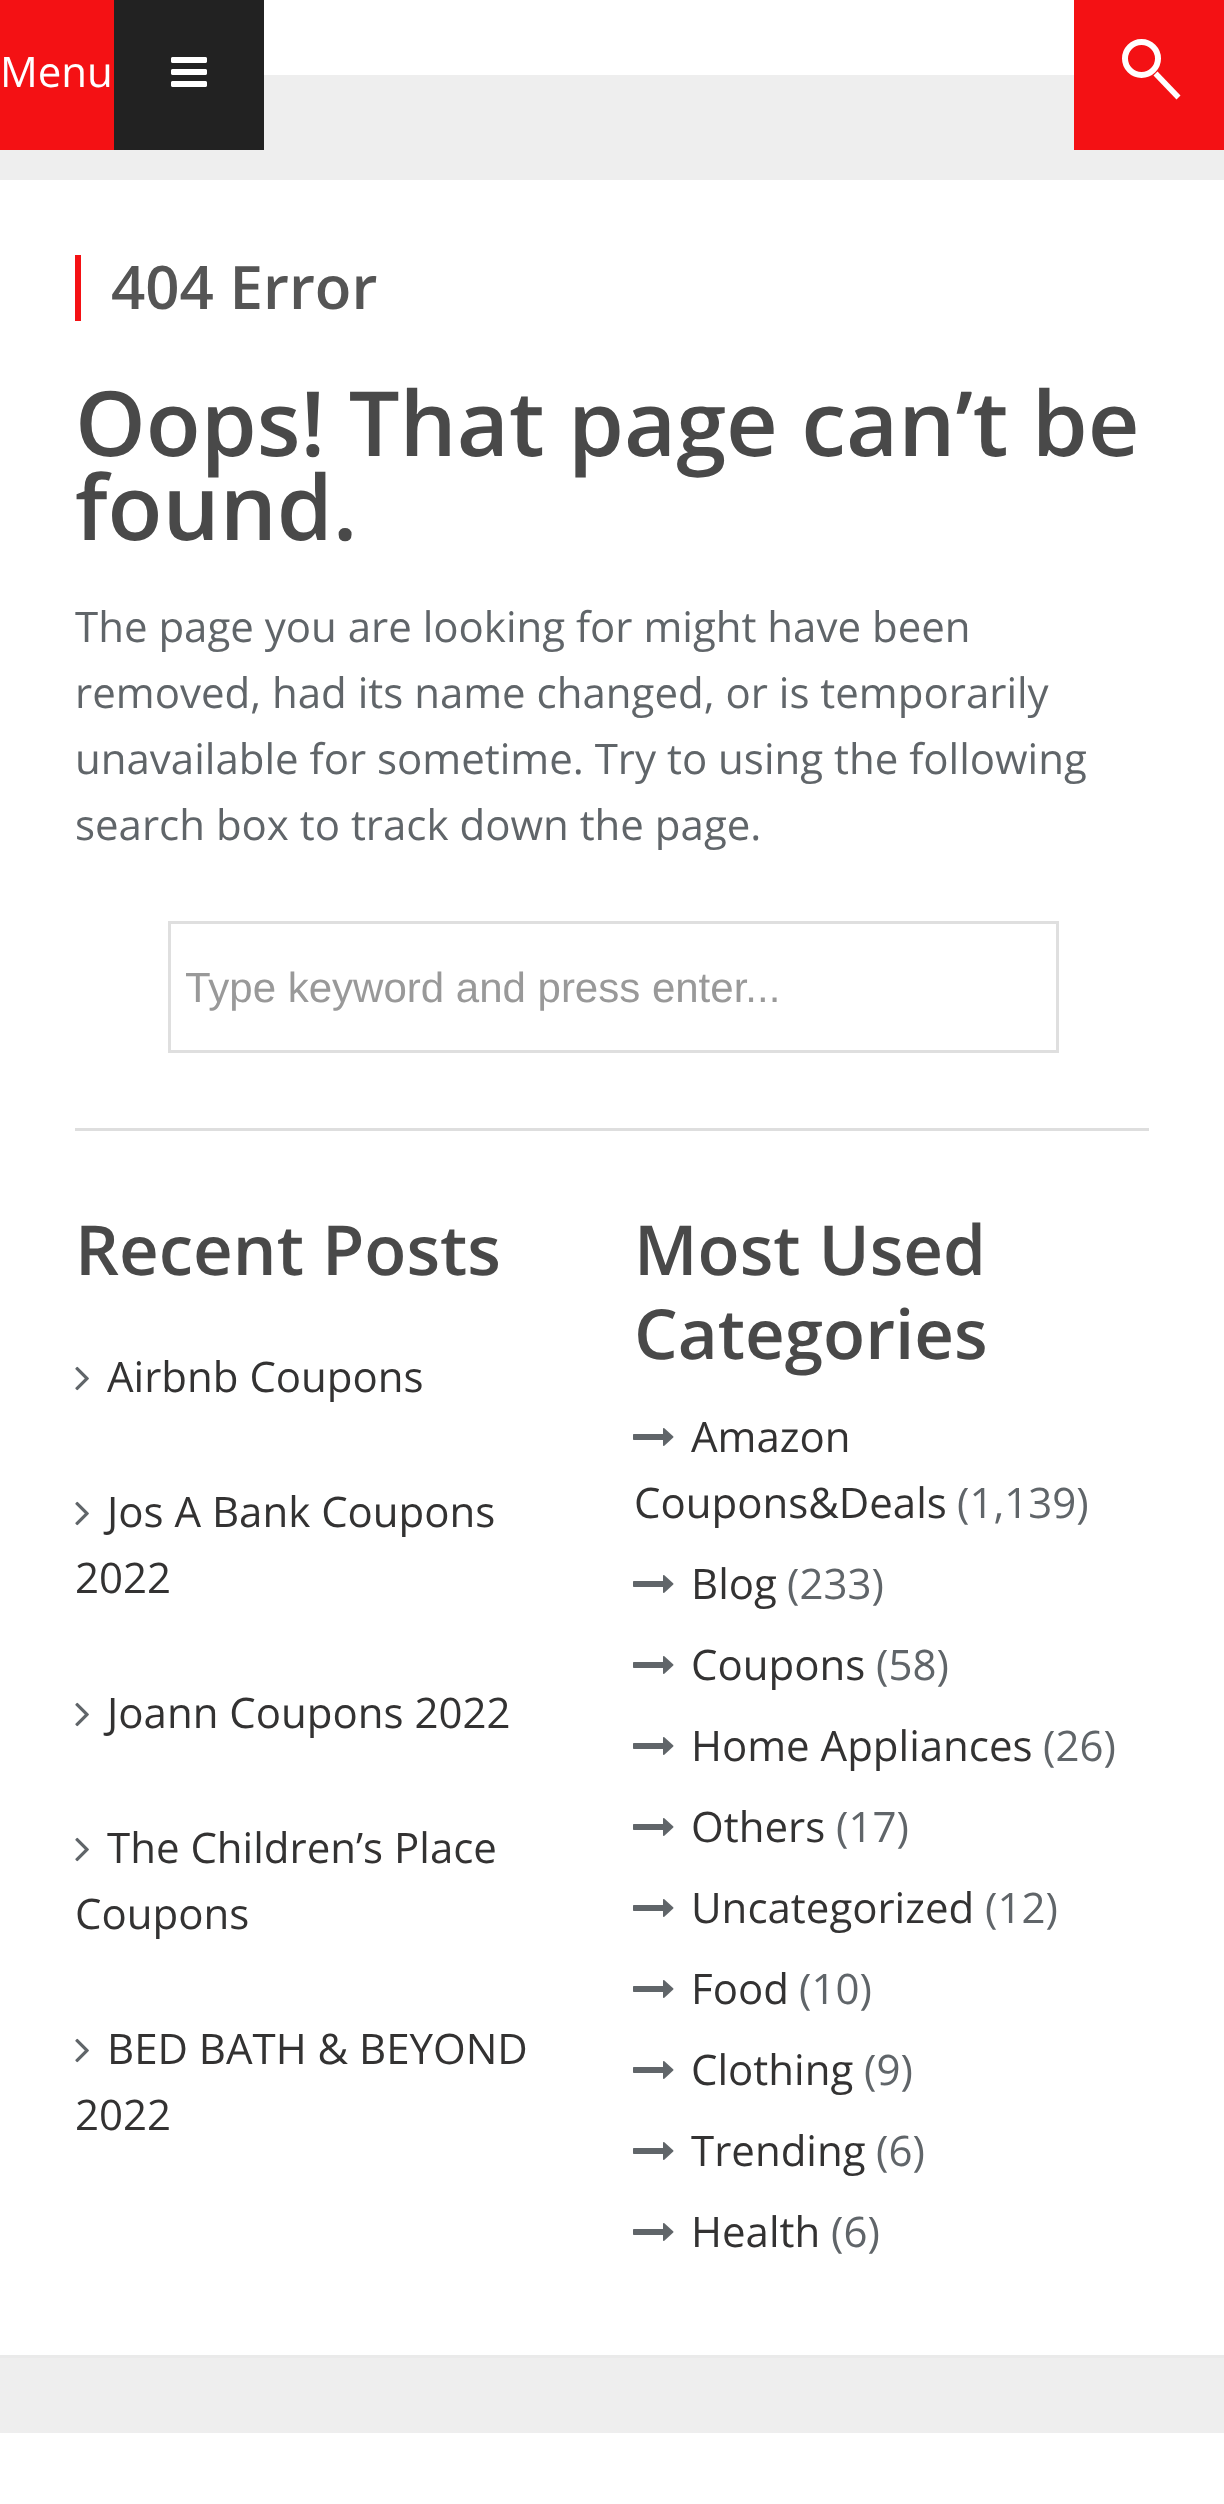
<!DOCTYPE html>
<meta charset="utf-8">
<style>body { margin: 0 } canvas { display: block }</style>
<canvas id="canvas" width="1224" height="2504"></canvas>
<img id="img1" src="images/1.png" hidden>
<img id="img2" src="images/2.png" hidden>
<img id="img3" src="images/3.png" hidden>
<script>
window.onload = function () {
    const canvas = document.getElementById('canvas');
    const context = canvas.getContext('2d');
    context.miterLimit = 4;
    context.fontKerning = 'normal';

    context.fillStyle = 'rgb(238, 238, 238)';
    context.fillRect(0, 0, 1224, 2504);
    context.fillStyle = 'rgb(255, 255, 255)';
    context.fillRect(264, 0, 810, 75);
    context.fillStyle = 'rgb(244, 17, 20)';
    context.fillRect(0, 0, 114, 150);
    context.fillStyle = 'rgb(34, 34, 34)';
    context.fillRect(114, 0, 150, 150);
    context.drawImage(document.getElementById('img1'), 171, 57, 36, 30);
    context.fillStyle = 'rgb(244, 17, 20)';
    context.fillRect(1074, 0, 150, 150);
    context.beginPath();
    context.arc(1141.5, 58.5, 16.5, 0, 2 * Math.PI);
    context.strokeStyle = 'rgb(255, 255, 255)';
    context.lineWidth = 6;
    context.stroke();
    context.fillStyle = 'rgb(255, 255, 255)';
    context.beginPath();
    context.moveTo(1153.5, 75.5);
    context.lineTo(1157.5, 71.5);
    context.lineTo(1180.5, 95.5);
    context.lineTo(1176.5, 99.5);
    context.closePath();
    context.fill();
    context.fillRect(0, 180, 1224, 2175);
    context.fillStyle = 'rgb(234, 234, 234)';
    context.fillRect(0, 2355, 1224, 3);
    context.fillStyle = 'rgb(244, 17, 20)';
    context.fillRect(75, 255, 6, 66);
    context.fillStyle = 'rgb(222, 222, 222)';
    context.fillRect(75, 1128, 1074, 3);
    context.strokeStyle = 'rgb(223, 223, 223)';
    context.lineWidth = 3;
    context.strokeRect(169.5, 922.5, 888, 129);
    context.drawImage(document.getElementById('img2'), 75, 1366, 14, 25);
    context.drawImage(document.getElementById('img2'), 75, 1501, 14, 25);
    context.drawImage(document.getElementById('img2'), 75, 1702, 14, 25);
    context.drawImage(document.getElementById('img2'), 75, 1837, 14, 25);
    context.drawImage(document.getElementById('img2'), 75, 2038, 14, 25);
    context.drawImage(document.getElementById('img3'), 633, 1428, 41, 18);
    context.drawImage(document.getElementById('img3'), 633, 1575, 41, 18);
    context.drawImage(document.getElementById('img3'), 633, 1656, 41, 18);
    context.drawImage(document.getElementById('img3'), 633, 1737, 41, 18);
    context.drawImage(document.getElementById('img3'), 633, 1818, 41, 18);
    context.drawImage(document.getElementById('img3'), 633, 1899, 41, 18);
    context.drawImage(document.getElementById('img3'), 633, 1980, 41, 18);
    context.drawImage(document.getElementById('img3'), 633, 2061, 41, 18);
    context.drawImage(document.getElementById('img3'), 633, 2142, 41, 18);
    context.drawImage(document.getElementById('img3'), 633, 2223, 41, 18);
    context.fillStyle = 'rgb(255, 255, 255)';
    context.fillRect(0, 2433, 1224, 71);
    context.font = '42px Open Sans';
    context.fillText('Menu', 0, 87);
    context.font = '600 60px Open Sans';
    context.fillStyle = 'rgb(85, 85, 85)';
    context.fillText('404 Error', 111, 309);
    context.font = '600 90px Open Sans';
    context.fillStyle = 'rgb(73, 73, 73)';
    context.fillText('Oops! That page can’t be', 75, 456);
    context.fillText('found.', 75, 540);
    context.font = '42px Open Sans';
    context.fillStyle = 'rgb(96, 101, 105)';
    context.fillText('The page you are looking for might have been', 75, 642);
    context.fillText('removed, had its name changed, or is temporarily', 75, 708);
    context.fillText('unavailable for sometime. Try to using the following', 75, 774);
    context.fillText('search box to track down the page.', 75, 840);
    context.save();
    context.beginPath();
    context.rect(186, 963, 771, 48);
    context.clip();
    context.font = '42px Liberation Sans';
    context.fillStyle = 'rgb(153, 153, 153)';
    context.fillText('Type keyword and press enter...', 185, 1002);
    context.restore();
    context.font = '600 69px Open Sans';
    context.fillStyle = 'rgb(73, 73, 73)';
    context.fillText('Recent Posts', 75, 1275);
    context.font = '42px Open Sans';
    context.fillStyle = 'rgb(51, 50, 50)';
    context.fillText('Airbnb Coupons', 107, 1392);
    context.fillText('Jos A Bank Coupons', 107, 1527);
    context.fillText('2022', 75, 1593);
    context.fillText('Joann Coupons 2022', 107, 1728);
    context.fillText('The Children’s Place', 107, 1863);
    context.fillText('Coupons', 75, 1929);
    context.fillText('BED BATH & BEYOND', 107, 2064);
    context.fillText('2022', 75, 2130);
    context.font = '600 69px Open Sans';
    context.fillStyle = 'rgb(73, 73, 73)';
    context.fillText('Most Used', 634, 1275);
    context.fillText('Categories', 634, 1359);
    context.font = '42px Open Sans';
    context.fillStyle = 'rgb(51, 50, 50)';
    context.fillText('Amazon', 691, 1452);
    context.fillText('Coupons&Deals', 634, 1518);
    context.fillStyle = 'rgb(96, 101, 105)';
    context.fillText('(1,139)', 957, 1518);
    context.fillStyle = 'rgb(51, 50, 50)';
    context.fillText('Blog', 691, 1599);
    context.fillStyle = 'rgb(96, 101, 105)';
    context.fillText('(233)', 787, 1599);
    context.fillStyle = 'rgb(51, 50, 50)';
    context.fillText('Coupons', 691, 1680);
    context.fillStyle = 'rgb(96, 101, 105)';
    context.fillText('(58)', 876, 1680);
    context.fillStyle = 'rgb(51, 50, 50)';
    context.fillText('Home Appliances', 691, 1761);
    context.fillStyle = 'rgb(96, 101, 105)';
    context.fillText('(26)', 1043, 1761);
    context.fillStyle = 'rgb(51, 50, 50)';
    context.fillText('Others', 691, 1842);
    context.fillStyle = 'rgb(96, 101, 105)';
    context.fillText('(17)', 836, 1842);
    context.fillStyle = 'rgb(51, 50, 50)';
    context.fillText('Uncategorized', 691, 1923);
    context.fillStyle = 'rgb(96, 101, 105)';
    context.fillText('(12)', 985, 1923);
    context.fillStyle = 'rgb(51, 50, 50)';
    context.fillText('Food', 691, 2004);
    context.fillStyle = 'rgb(96, 101, 105)';
    context.fillText('(10)', 799, 2004);
    context.fillStyle = 'rgb(51, 50, 50)';
    context.fillText('Clothing', 691, 2085);
    context.fillStyle = 'rgb(96, 101, 105)';
    context.fillText('(9)', 864, 2085);
    context.fillStyle = 'rgb(51, 50, 50)';
    context.fillText('Trending', 691, 2166);
    context.fillStyle = 'rgb(96, 101, 105)';
    context.fillText('(6)', 876, 2166);
    context.fillStyle = 'rgb(51, 50, 50)';
    context.fillText('Health', 691, 2247);
    context.fillStyle = 'rgb(96, 101, 105)';
    context.fillText('(6)', 831, 2247);
};
</script>
